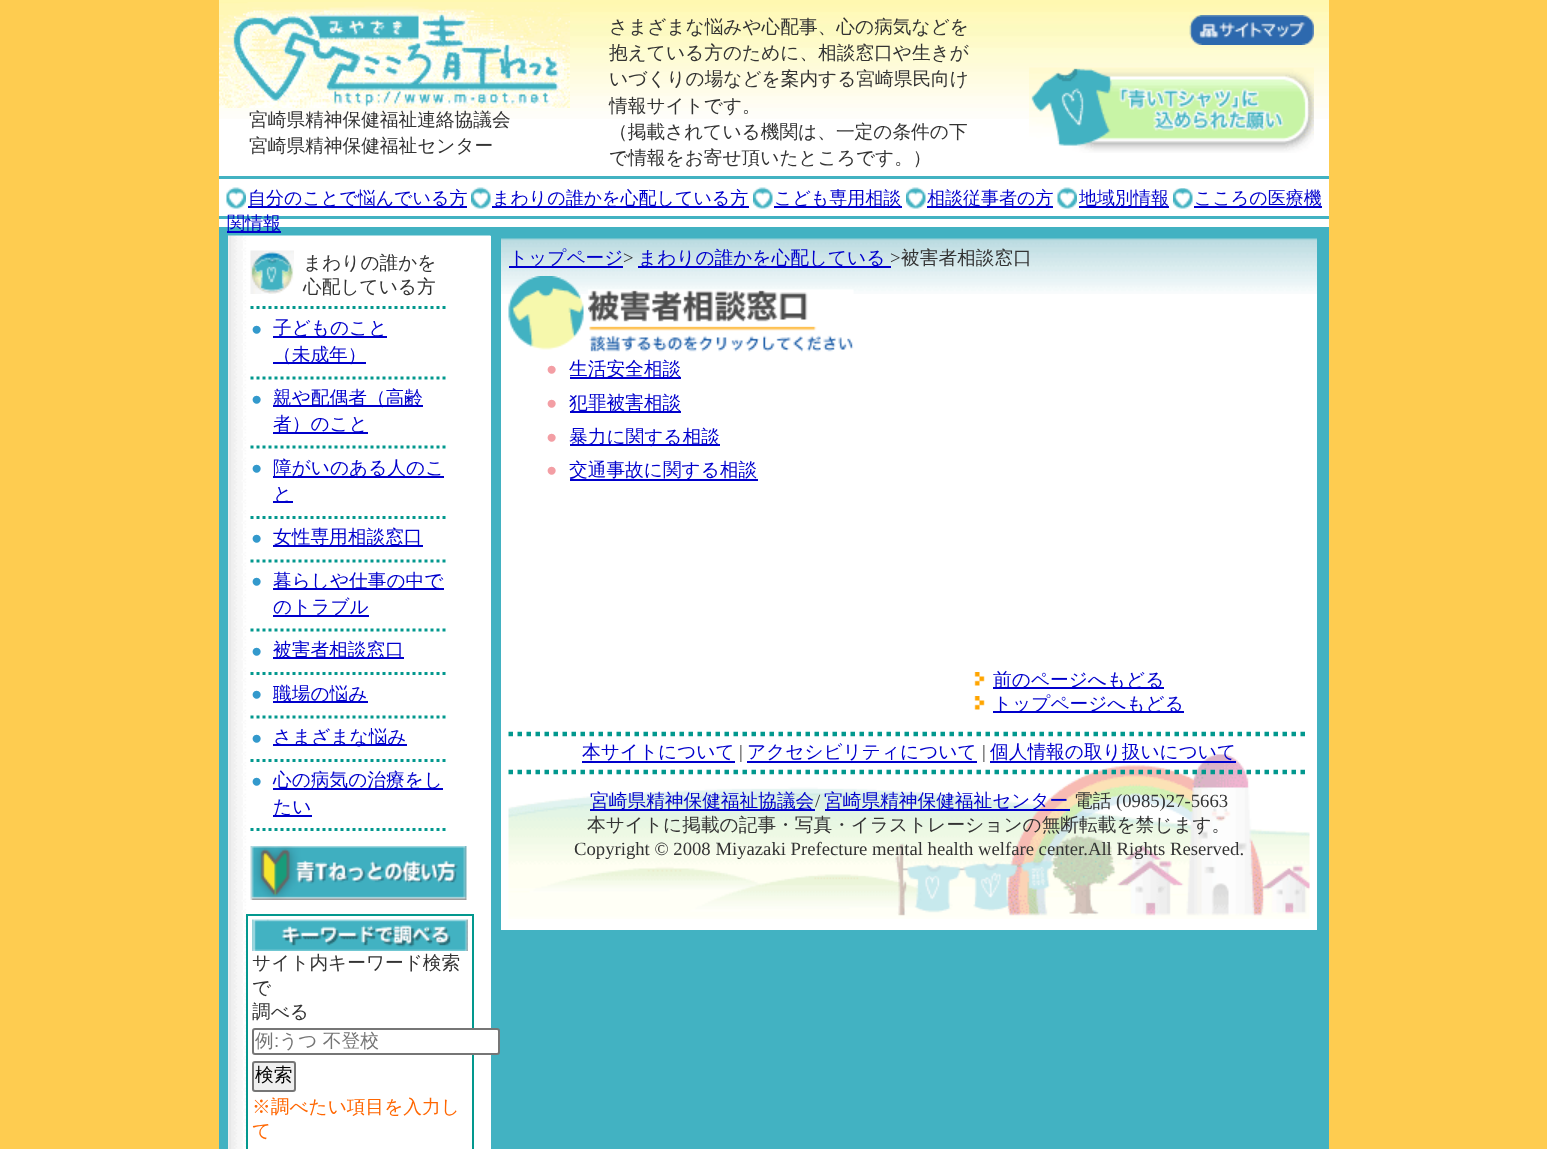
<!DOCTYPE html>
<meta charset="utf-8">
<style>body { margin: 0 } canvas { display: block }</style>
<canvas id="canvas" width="1547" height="1149"></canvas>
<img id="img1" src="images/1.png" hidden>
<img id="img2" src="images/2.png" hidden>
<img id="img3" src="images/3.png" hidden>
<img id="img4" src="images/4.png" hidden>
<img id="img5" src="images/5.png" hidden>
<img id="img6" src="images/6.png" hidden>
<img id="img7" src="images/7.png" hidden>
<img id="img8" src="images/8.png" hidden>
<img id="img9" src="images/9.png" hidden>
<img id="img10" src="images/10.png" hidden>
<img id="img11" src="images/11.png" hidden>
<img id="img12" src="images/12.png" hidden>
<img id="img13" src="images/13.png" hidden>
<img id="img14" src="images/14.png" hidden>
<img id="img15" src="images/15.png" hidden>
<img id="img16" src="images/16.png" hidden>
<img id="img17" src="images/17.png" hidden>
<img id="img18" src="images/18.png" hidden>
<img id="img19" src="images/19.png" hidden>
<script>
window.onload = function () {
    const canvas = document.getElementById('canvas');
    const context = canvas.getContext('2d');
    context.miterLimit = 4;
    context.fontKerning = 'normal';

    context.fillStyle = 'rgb(254, 204, 80)';
    context.fillRect(0, 0, 1547, 1149);
    context.fillStyle = 'rgb(255, 255, 255)';
    context.fillRect(219, 119, 1110, 108);
    context.drawImage(document.getElementById('img1'), 219, 0, 1110, 119);
    context.drawImage(document.getElementById('img2'), 219, 2, 351, 106);
    context.drawImage(document.getElementById('img3'), 1189, 15, 125, 30);
    context.drawImage(document.getElementById('img4'), 1029, 67, 285, 86);
    context.fillStyle = 'rgb(66, 178, 194)';
    context.fillRect(219, 176, 1110, 3);
    context.fillRect(219, 216, 1110, 3);
    context.drawImage(document.getElementById('img5'), 226, 187, 20, 22);
    context.fillStyle = 'rgb(0, 0, 204)';
    context.fillRect(248, 206, 219, 2);
    context.drawImage(document.getElementById('img6'), 471, 187, 20, 22);
    context.fillRect(492, 206, 257, 2);
    context.drawImage(document.getElementById('img7'), 753, 187, 20, 22);
    context.fillRect(774, 206, 128, 2);
    context.drawImage(document.getElementById('img8'), 906, 187, 20, 22);
    context.fillRect(927, 206, 126, 2);
    context.drawImage(document.getElementById('img9'), 1057, 187, 20, 22);
    context.fillRect(1079, 206, 90, 2);
    context.drawImage(document.getElementById('img10'), 1173, 188, 20, 21);
    context.fillRect(1194, 206, 128, 2);
    context.fillStyle = 'rgb(66, 178, 194)';
    context.fillRect(219, 227, 1110, 922);
    context.fillStyle = 'rgb(0, 0, 204)';
    context.fillRect(227, 231, 54, 2);
    context.fillStyle = 'rgb(255, 255, 255)';
    context.fillRect(490, 236, 1, 913);
    context.drawImage(document.getElementById('img11'), 228, 235, 263, 914);
    context.beginPath();
    context.moveTo(250.5, 307.5);
    context.lineTo(445.5, 307.5);
    context.strokeStyle = 'rgb(2, 152, 142)';
    context.lineWidth = 3;
    context.setLineDash([3, 3]);
    context.stroke();
    context.drawImage(document.getElementById('img12'), 250, 250, 44, 44);
    context.beginPath();
    context.moveTo(250.5, 378);
    context.lineTo(448.5, 378);
    context.stroke();
    context.fillStyle = 'rgb(0, 0, 204)';
    context.fillRect(273, 336, 114, 2);
    context.fillRect(273, 362, 93, 2);
    context.beginPath();
    context.moveTo(250.5, 447);
    context.lineTo(448.5, 447);
    context.stroke();
    context.fillRect(273, 405, 150, 2);
    context.fillRect(273, 432, 95, 2);
    context.beginPath();
    context.moveTo(250.5, 517.5);
    context.lineTo(448.5, 517.5);
    context.stroke();
    context.fillRect(273, 476, 171, 2);
    context.fillRect(273, 501, 20, 2);
    context.beginPath();
    context.moveTo(250.5, 561);
    context.lineTo(448.5, 561);
    context.stroke();
    context.fillRect(273, 545, 150, 2);
    context.beginPath();
    context.moveTo(250.5, 630);
    context.lineTo(448.5, 630);
    context.stroke();
    context.fillRect(273, 588, 171, 2);
    context.fillRect(273, 615, 96, 2);
    context.beginPath();
    context.moveTo(250.5, 673.5);
    context.lineTo(448.5, 673.5);
    context.stroke();
    context.fillRect(273, 657, 131, 2);
    context.beginPath();
    context.moveTo(250.5, 717);
    context.lineTo(448.5, 717);
    context.stroke();
    context.fillRect(273, 701, 95, 2);
    context.beginPath();
    context.moveTo(250.5, 760.5);
    context.lineTo(448.5, 760.5);
    context.stroke();
    context.fillRect(273, 744, 134, 2);
    context.beginPath();
    context.moveTo(250.5, 829.5);
    context.lineTo(448.5, 829.5);
    context.stroke();
    context.fillRect(273, 788, 170, 2);
    context.fillRect(273, 815, 39, 2);
    context.drawImage(document.getElementById('img13'), 250, 846, 217, 54);
    context.lineWidth = 2;
    context.setLineDash([]);
    context.strokeRect(247, 915, 226, 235);
    context.drawImage(document.getElementById('img14'), 252, 919, 216, 32);
    context.fillStyle = 'rgb(255, 255, 255)';
    context.beginPath();
    context.roundRect(253, 1029, 246, 25, 2);
    context.fill();
    context.strokeStyle = 'rgb(118, 118, 118)';
    context.stroke();
    context.fillStyle = 'rgb(239, 239, 239)';
    context.beginPath();
    context.roundRect(253, 1062, 42, 29, 2);
    context.fill();
    context.stroke();
    context.fillStyle = 'rgb(255, 255, 255)';
    context.fillRect(501, 294, 816, 636);
    context.drawImage(document.getElementById('img15'), 501, 238, 816, 56);
    context.fillStyle = 'rgb(0, 0, 204)';
    context.fillRect(509, 266, 114, 2);
    context.fillRect(638, 266, 253, 2);
    context.drawImage(document.getElementById('img16'), 508, 276, 76, 74);
    context.drawImage(document.getElementById('img17'), 588, 289, 266, 63);
    context.fillRect(570, 377, 111, 2);
    context.fillRect(570, 411, 111, 2);
    context.fillRect(570, 444, 150, 2);
    context.fillRect(570, 479, 188, 2);
    context.drawImage(document.getElementById('img18'), 974, 672, 11, 14);
    context.fillRect(993, 687, 171, 2);
    context.drawImage(document.getElementById('img18'), 974, 696, 11, 14);
    context.fillRect(993, 711, 191, 2);
    context.drawImage(document.getElementById('img19'), 508, 754, 802, 165);
    context.beginPath();
    context.moveTo(508.5, 734);
    context.lineTo(1309.5, 734);
    context.strokeStyle = 'rgb(2, 152, 142)';
    context.lineWidth = 4.5;
    context.setLineDash([4.5, 4.5]);
    context.stroke();
    context.beginPath();
    context.moveTo(508.5, 772);
    context.lineTo(1309.5, 772);
    context.stroke();
    context.fillRect(582, 761, 153, 2);
    context.fillRect(747, 761, 230, 2);
    context.fillRect(990, 761, 246, 2);
    context.fillRect(590, 809, 225, 2);
    context.fillRect(825, 809, 245, 2);
    context.font = '500 18.7px WenQuanYi Zen Hei';
    context.fillStyle = 'rgb(51, 51, 51)';
    context.fillText('宮崎県精神保健福祉連絡協議会', 249, 126);
    context.fillText('宮崎県精神保健福祉センター', 249, 152);
    context.fillText('さまざまな悩みや心配事、心の病気などを', 609, 33);
    context.fillText('抱えている方のために、相談窓口や生きが', 609, 59);
    context.fillText('いづくりの場などを案内する宮崎県民向け', 609, 85);
    context.fillText('情報サイトです。', 609, 112);
    context.fillText('（掲載されている機関は、一定の条件の下', 609, 138);
    context.fillText('で情報をお寄せ頂いたところです。）', 609, 164);
    context.font = '500 18px WenQuanYi Zen Hei';
    context.fillStyle = 'rgb(0, 0, 204)';
    context.fillText('自分のことで悩んでいる方', 248, 204);
    context.fillText('まわりの誰かを心配している方', 492, 204);
    context.fillText('こども専用相談', 774, 204);
    context.fillText('相談従事者の方', 927, 204);
    context.fillText('地域別情報', 1079, 204);
    context.fillText('こころの医療機', 1194, 204);
    context.fillText('関情報', 227, 229);
    context.font = '500 18.7px WenQuanYi Zen Hei';
    context.fillStyle = 'rgb(51, 51, 51)';
    context.fillText('まわりの誰かを', 303, 269);
    context.fillText('心配している方', 303, 293);
    context.font = '18.7px Liberation Serif';
    context.fillStyle = 'rgb(51, 153, 204)';
    context.fillText('●', 251, 335);
    context.font = '500 18.7px WenQuanYi Zen Hei';
    context.fillStyle = 'rgb(0, 0, 204)';
    context.fillText('子どものこと', 273, 334);
    context.fillText('（未成年）', 273, 361);
    context.font = '18.7px Liberation Serif';
    context.fillStyle = 'rgb(51, 153, 204)';
    context.fillText('●', 251, 405);
    context.font = '500 18.7px WenQuanYi Zen Hei';
    context.fillStyle = 'rgb(0, 0, 204)';
    context.fillText('親や配偶者（高齢', 273, 404);
    context.fillText('者）のこと', 273, 430);
    context.font = '18.7px Liberation Serif';
    context.fillStyle = 'rgb(51, 153, 204)';
    context.fillText('●', 251, 474);
    context.font = '500 18.7px WenQuanYi Zen Hei';
    context.fillStyle = 'rgb(0, 0, 204)';
    context.fillText('障がいのある人のこ', 273, 474);
    context.fillText('と', 273, 500);
    context.font = '18.7px Liberation Serif';
    context.fillStyle = 'rgb(51, 153, 204)';
    context.fillText('●', 251, 544);
    context.font = '500 18.7px WenQuanYi Zen Hei';
    context.fillStyle = 'rgb(0, 0, 204)';
    context.fillText('女性専用相談窓口', 273, 543);
    context.font = '18.7px Liberation Serif';
    context.fillStyle = 'rgb(51, 153, 204)';
    context.fillText('●', 251, 587);
    context.font = '500 18.7px WenQuanYi Zen Hei';
    context.fillStyle = 'rgb(0, 0, 204)';
    context.fillText('暮らしや仕事の中で', 273, 587);
    context.fillText('のトラブル', 273, 613);
    context.font = '18.7px Liberation Serif';
    context.fillStyle = 'rgb(51, 153, 204)';
    context.fillText('●', 251, 657);
    context.font = '500 18.7px WenQuanYi Zen Hei';
    context.fillStyle = 'rgb(0, 0, 204)';
    context.fillText('被害者相談窓口', 273, 656);
    context.font = '18.7px Liberation Serif';
    context.fillStyle = 'rgb(51, 153, 204)';
    context.fillText('●', 251, 700);
    context.font = '500 18.7px WenQuanYi Zen Hei';
    context.fillStyle = 'rgb(0, 0, 204)';
    context.fillText('職場の悩み', 273, 700);
    context.font = '18.7px Liberation Serif';
    context.fillStyle = 'rgb(51, 153, 204)';
    context.fillText('●', 251, 744);
    context.font = '500 18.7px WenQuanYi Zen Hei';
    context.fillStyle = 'rgb(0, 0, 204)';
    context.fillText('さまざまな悩み', 273, 743);
    context.font = '18.7px Liberation Serif';
    context.fillStyle = 'rgb(51, 153, 204)';
    context.fillText('●', 251, 787);
    context.font = '500 18.7px WenQuanYi Zen Hei';
    context.fillStyle = 'rgb(0, 0, 204)';
    context.fillText('心の病気の治療をし', 273, 786);
    context.fillText('たい', 273, 813);
    context.fillStyle = 'rgb(51, 51, 51)';
    context.fillText('サイト内キーワード検索', 252, 969);
    context.fillText('で', 252, 994);
    context.fillText('調べる', 252, 1018);
    context.fillStyle = 'rgb(117, 117, 117)';
    context.fillText('例', 255, 1047);
    context.font = '18.7px Liberation Sans';
    context.fillText(':', 274, 1047);
    context.font = '500 18.7px WenQuanYi Zen Hei';
    context.fillText('うつ 不登校', 279, 1047);
    context.fillStyle = 'rgb(0, 0, 0)';
    context.fillText('検索', 255, 1081);
    context.fillStyle = 'rgb(255, 102, 0)';
    context.fillText('※調べたい項目を入力し', 252, 1113);
    context.fillText('て', 252, 1137);
    context.fillStyle = 'rgb(0, 0, 204)';
    context.fillText('トップページ', 509, 264);
    context.font = '18.7px Liberation Serif';
    context.fillStyle = 'rgb(51, 51, 51)';
    context.fillText('>', 623, 264);
    context.font = '500 18.7px WenQuanYi Zen Hei';
    context.fillStyle = 'rgb(0, 0, 204)';
    context.fillText('まわりの誰かを心配している', 638, 264);
    context.font = '18.7px Liberation Serif';
    context.fillStyle = 'rgb(51, 51, 51)';
    context.fillText('>', 890, 264);
    context.font = '500 18.7px WenQuanYi Zen Hei';
    context.fillText('被害者相談窓口', 901, 264);
    context.font = '18.7px Liberation Serif';
    context.fillStyle = 'rgb(243, 158, 164)';
    context.fillText('●', 546, 375);
    context.font = '500 18.7px WenQuanYi Zen Hei';
    context.fillStyle = 'rgb(0, 0, 204)';
    context.fillText('生活安全相談', 569, 375);
    context.font = '18.7px Liberation Serif';
    context.fillStyle = 'rgb(243, 158, 164)';
    context.fillText('●', 546, 409);
    context.font = '500 18.7px WenQuanYi Zen Hei';
    context.fillStyle = 'rgb(0, 0, 204)';
    context.fillText('犯罪被害相談', 569, 409);
    context.font = '18.7px Liberation Serif';
    context.fillStyle = 'rgb(243, 158, 164)';
    context.fillText('●', 546, 443);
    context.font = '500 18.7px WenQuanYi Zen Hei';
    context.fillStyle = 'rgb(0, 0, 204)';
    context.fillText('暴力に関する相談', 569, 443);
    context.font = '18.7px Liberation Serif';
    context.fillStyle = 'rgb(243, 158, 164)';
    context.fillText('●', 546, 476);
    context.font = '500 18.7px WenQuanYi Zen Hei';
    context.fillStyle = 'rgb(0, 0, 204)';
    context.fillText('交通事故に関する相談', 569, 476);
    context.fillText('前のページへもどる', 993, 686);
    context.fillText('トップページへもどる', 993, 710);
    context.fillText('本サイトについて', 582, 758);
    context.font = '18.7px Liberation Serif';
    context.fillStyle = 'rgb(51, 51, 51)';
    context.fillText('|', 739, 758);
    context.font = '500 18.7px WenQuanYi Zen Hei';
    context.fillStyle = 'rgb(0, 0, 204)';
    context.fillText('アクセシビリティについて', 747, 758);
    context.font = '18.7px Liberation Serif';
    context.fillStyle = 'rgb(51, 51, 51)';
    context.fillText('|', 982, 758);
    context.font = '500 18.7px WenQuanYi Zen Hei';
    context.fillStyle = 'rgb(0, 0, 204)';
    context.fillText('個人情報の取り扱いについて', 990, 758);
    context.fillText('宮崎県精神保健福祉協議会', 590, 807);
    context.font = '18.7px Liberation Serif';
    context.fillStyle = 'rgb(51, 51, 51)';
    context.fillText('/', 815, 807);
    context.font = '500 18.7px WenQuanYi Zen Hei';
    context.fillStyle = 'rgb(0, 0, 204)';
    context.fillText('宮崎県精神保健福祉センター', 824, 807);
    context.fillStyle = 'rgb(51, 51, 51)';
    context.fillText('電話', 1074, 807);
    context.font = '18.7px Liberation Serif';
    context.fillText('(0985)27-5663', 1116, 807);
    context.font = '500 18.7px WenQuanYi Zen Hei';
    context.fillText('本サイトに掲載の記事・写真・イラストレーションの無断転載を禁じます。', 587, 831);
    context.font = '18.7px Liberation Serif';
    context.fillText('Copyright © 2008 Miyazaki Prefecture mental health welfare center.All Rights Reserved.', 574, 855);
};
</script>
